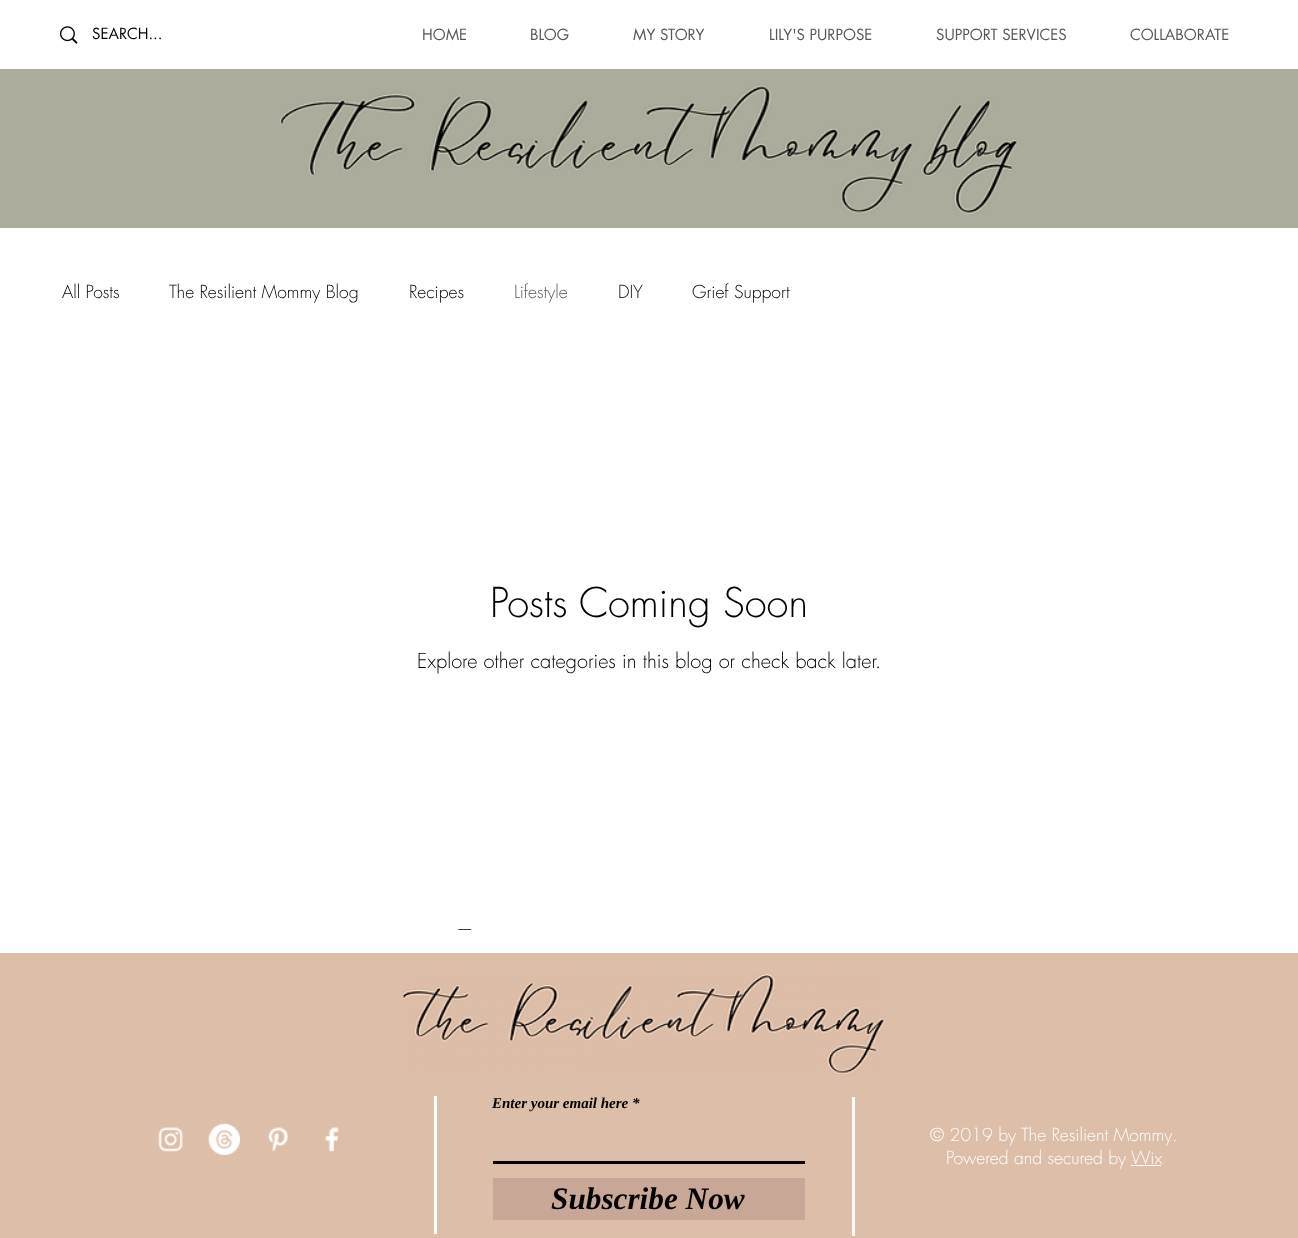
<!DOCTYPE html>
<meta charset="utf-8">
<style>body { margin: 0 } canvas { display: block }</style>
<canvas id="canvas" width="1298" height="1238"></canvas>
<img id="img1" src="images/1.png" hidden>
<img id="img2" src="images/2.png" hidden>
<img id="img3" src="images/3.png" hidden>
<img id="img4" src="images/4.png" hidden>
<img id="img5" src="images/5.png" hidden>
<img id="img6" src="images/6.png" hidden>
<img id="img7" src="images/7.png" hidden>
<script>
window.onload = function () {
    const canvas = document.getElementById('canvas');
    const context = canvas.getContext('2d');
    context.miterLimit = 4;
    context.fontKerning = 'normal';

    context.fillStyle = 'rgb(255, 255, 255)';
    context.fillRect(0, 0, 1298, 1238);
    context.drawImage(document.getElementById('img1'), 60, 26, 18, 18);
    context.fillStyle = 'rgb(172, 172, 156)';
    context.fillRect(0, 69, 1298, 159);
    context.drawImage(document.getElementById('img2'), 280, 84, 738, 130);
    context.fillStyle = 'rgb(221, 190, 169)';
    context.fillRect(0, 953, 1298, 285);
    context.drawImage(document.getElementById('img3'), 401, 972, 484, 103);
    context.drawImage(document.getElementById('img4'), 158, 1127, 25, 25);
    context.drawImage(document.getElementById('img5'), 208, 1123, 32, 32);
    context.drawImage(document.getElementById('img6'), 268, 1127, 21, 25);
    context.drawImage(document.getElementById('img7'), 325, 1127, 14, 25);
    context.fillStyle = 'rgb(255, 255, 255)';
    context.fillRect(434, 1096, 3, 138);
    context.fillStyle = 'rgb(0, 0, 0)';
    context.fillRect(493, 1161, 312, 3);
    context.fillStyle = 'rgb(200, 167, 151)';
    context.fillRect(493, 1178, 312, 42);
    context.fillStyle = 'rgb(255, 255, 255)';
    context.fillRect(852, 1097, 3, 139);
    context.fillRect(1131, 1165, 30, 1);
    context.font = '15px futura';
    context.fillStyle = 'rgb(0, 0, 0)';
    context.fillText('SEARCH...', 92, 39);
    context.fillStyle = 'rgb(88, 86, 86)';
    context.fillText('HOME', 422, 40);
    context.fillText('BLOG', 530, 40);
    context.fillText('MY STORY', 633, 40);
    context.fillText('LILY\'S PURPOSE', 769, 40);
    context.fillText('SUPPORT SERVICES', 936, 40);
    context.fillText('COLLABORATE', 1130, 40);
    context.font = '300 17.5px futura';
    context.fillStyle = 'rgb(0, 0, 0)';
    context.fillText('All Posts', 62, 298);
    context.fillText('The Resilient Mommy Blog', 169, 298);
    context.fillText('Recipes', 409, 298);
    context.fillStyle = 'rgb(88, 86, 86)';
    context.fillText('Lifestyle', 514, 298);
    context.fillStyle = 'rgb(0, 0, 0)';
    context.fillText('DIY', 618, 298);
    context.fillText('Grief Support', 692, 298);
    context.font = '300 40px futura';
    context.fillText('Posts Coming Soon', 490, 617);
    context.font = '300 20px futura';
    context.fillText('Explore other categories in this blog or check back later.', 417, 668);
    context.font = '300 17.5px futura';
    context.fillText('—', 456, 935);
    context.font = 'italic bold 15px Liberation Serif';
    context.fillText('Enter your email here *', 492, 1108);
    context.font = 'italic bold 31.25px Liberation Serif';
    context.fillText('Subscribe Now', 551, 1209);
    context.font = '300 17.5px futura';
    context.fillStyle = 'rgb(255, 255, 255)';
    context.fillText('© 2019 by The Resilient Mommy.', 930, 1141);
    context.fillText('Powered and secured by', 946, 1164);
    context.fillText('Wix', 1131, 1164);
};
</script>
